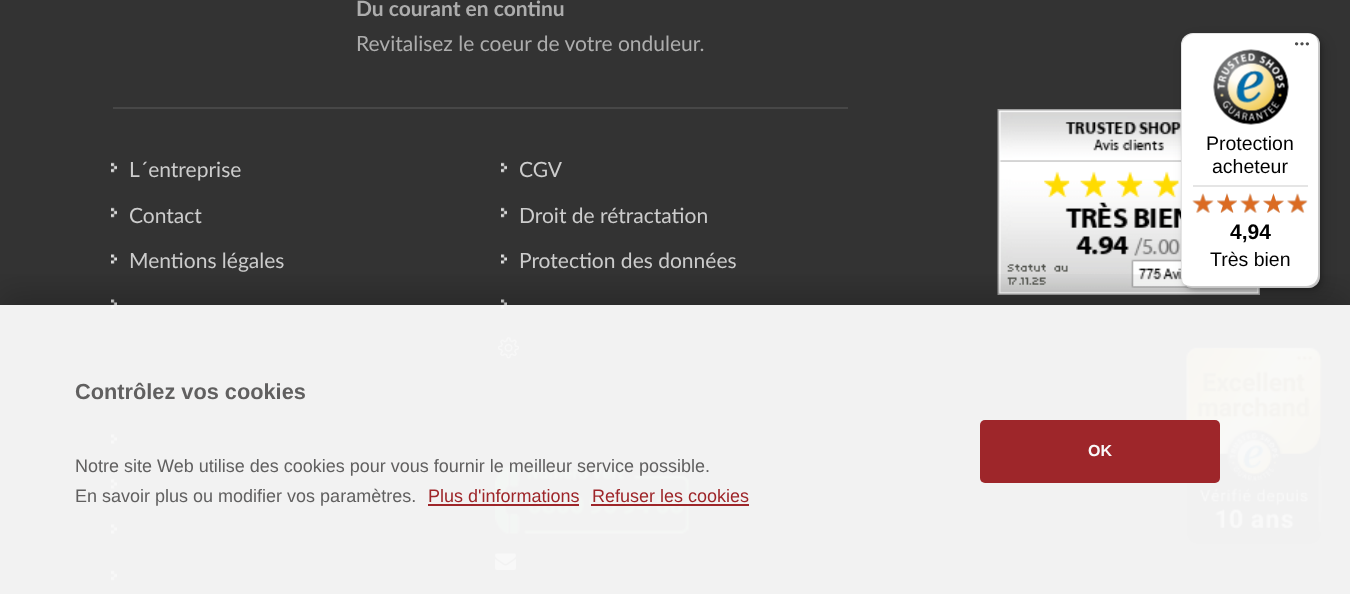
<!DOCTYPE html>
<meta charset="utf-8">
<style>body { margin: 0 } canvas { display: block }</style>
<canvas id="canvas" width="1350" height="594"></canvas>
<img id="img1" src="images/1.png" hidden>
<img id="img2" src="images/2.png" hidden>
<img id="img3" src="images/3.png" hidden>
<img id="img4" src="images/4.png" hidden>
<img id="img5" src="images/5.png" hidden>
<img id="img6" src="images/6.png" hidden>
<img id="img7" src="images/19.png" hidden>
<img id="img8" src="images/7.png" hidden>
<img id="img9" src="images/8.png" hidden>
<img id="img10" src="images/14.png" hidden>
<img id="img11" src="images/9.png" hidden>
<img id="img12" src="images/15.png" hidden>
<img id="img13" src="images/10.png" hidden>
<img id="img14" src="images/16.png" hidden>
<img id="img15" src="images/11.png" hidden>
<img id="img16" src="images/17.png" hidden>
<img id="img17" src="images/12.png" hidden>
<img id="img18" src="images/18.png" hidden>
<img id="img19" src="images/13.png" hidden>
<script>
window.onload = function () {
    const canvas = document.getElementById('canvas');
    const context = canvas.getContext('2d');
    context.miterLimit = 4;
    context.fontKerning = 'normal';

    context.fillStyle = 'rgb(51, 51, 51)';
    context.fillRect(0, 0, 1350, 594);
    context.fillStyle = 'rgb(71, 71, 71)';
    context.fillRect(113, 107, 735, 2);
    context.drawImage(document.getElementById('img1'), 111, 162, 6, 11);
    context.drawImage(document.getElementById('img1'), 111, 207, 6, 11);
    context.drawImage(document.getElementById('img2'), 111, 254, 6, 10);
    context.drawImage(document.getElementById('img2'), 111, 299, 6, 10);
    context.drawImage(document.getElementById('img1'), 501, 162, 6, 11);
    context.drawImage(document.getElementById('img1'), 501, 207, 6, 11);
    context.drawImage(document.getElementById('img2'), 501, 254, 6, 10);
    context.drawImage(document.getElementById('img2'), 501, 299, 6, 10);
    context.drawImage(document.getElementById('img3'), 498, 337, 21, 22);
    context.drawImage(document.getElementById('img2'), 111, 434, 6, 10);
    context.drawImage(document.getElementById('img2'), 111, 479, 6, 10);
    context.drawImage(document.getElementById('img2'), 111, 524, 6, 10);
    context.drawImage(document.getElementById('img1'), 111, 570, 6, 11);
    context.drawImage(document.getElementById('img4'), 495, 465, 194, 69);
    context.drawImage(document.getElementById('img5'), 495, 553, 21, 17);
    context.drawImage(document.getElementById('img6'), 997, 109, 263, 186);
    context.drawImage(document.getElementById('img7'), 1185, 347, 138, 200);
    context.save();
    context.beginPath();
    context.rect(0, 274, 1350, 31);
    context.clip();
    context.fillStyle = 'rgba(0, 0, 0, 0.19)';
    context.filter = 'blur(15px)';
    context.beginPath();
    context.rect(0, 293, 1350, 289);
    context.fill();
    context.filter = 'none';
    context.restore();
    context.fillStyle = 'rgba(249, 249, 249, 0.97)';
    context.fillRect(0, 305, 1350, 289);
    context.fillStyle = 'rgba(0, 0, 0, 0.15)';
    context.filter = 'blur(6px)';
    context.beginPath();
    context.roundRect(1185, 38, 140, 255, 12);
    context.fill();
    context.filter = 'none';
    context.filter = 'blur(1.5px)';
    context.beginPath();
    context.roundRect(1182, 35, 140, 255, 12);
    context.fill();
    context.filter = 'none';
    context.fillStyle = 'rgb(255, 255, 255)';
    context.beginPath();
    context.roundRect(1181, 33, 139, 255, 12);
    context.fill();
    context.fillStyle = 'rgba(0, 0, 0, 0.1)';
    context.beginPath();
    context.moveTo(1194, 34);
    context.lineTo(1310, 34);
    context.bezierCurveTo(1312, 34, 1314, 35, 1315, 36);
    context.bezierCurveTo(1313, 34, 1311, 33, 1308, 33);
    context.lineTo(1193, 33);
    context.bezierCurveTo(1186, 33, 1181, 38, 1181, 45);
    context.lineTo(1181, 276);
    context.bezierCurveTo(1181, 278, 1182, 281, 1183, 283);
    context.lineTo(1182, 278);
    context.lineTo(1182, 46);
    context.bezierCurveTo(1182, 40, 1187, 34, 1194, 34);
    context.closePath();
    context.fill();
    context.fillStyle = 'rgba(0, 0, 0, 0.2)';
    context.beginPath();
    context.moveTo(1184, 284);
    context.bezierCurveTo(1186, 286, 1189, 288, 1193, 288);
    context.lineTo(1308, 288);
    context.bezierCurveTo(1315, 288, 1320, 283, 1320, 276);
    context.lineTo(1320, 45);
    context.bezierCurveTo(1320, 40, 1317, 36, 1313, 34);
    context.bezierCurveTo(1316, 36, 1318, 40, 1318, 44);
    context.lineTo(1318, 274);
    context.bezierCurveTo(1318, 281, 1313, 286, 1306, 286);
    context.lineTo(1191, 286);
    context.bezierCurveTo(1188, 286, 1186, 285, 1184, 284);
    context.closePath();
    context.fill();
    context.fillStyle = 'rgba(50, 50, 50, 0.2)';
    context.beginPath();
    context.moveTo(1185, 285);
    context.bezierCurveTo(1187, 287, 1190, 288, 1193, 288);
    context.lineTo(1308, 288);
    context.bezierCurveTo(1315, 288, 1320, 283, 1320, 276);
    context.lineTo(1320, 45);
    context.bezierCurveTo(1320, 42, 1319, 39, 1317, 37);
    context.bezierCurveTo(1318, 39, 1319, 41, 1319, 44);
    context.lineTo(1319, 275);
    context.bezierCurveTo(1319, 282, 1314, 287, 1307, 287);
    context.lineTo(1192, 287);
    context.bezierCurveTo(1189, 287, 1187, 286, 1185, 285);
    context.closePath();
    context.fill();
    context.fillStyle = 'rgba(255, 255, 255, 0.3)';
    context.beginPath();
    context.moveTo(1185, 285);
    context.bezierCurveTo(1187, 287, 1190, 288, 1193, 288);
    context.lineTo(1308, 288);
    context.bezierCurveTo(1315, 288, 1320, 283, 1320, 276);
    context.lineTo(1320, 45);
    context.bezierCurveTo(1320, 41, 1318, 38, 1316, 36);
    context.bezierCurveTo(1318, 38, 1319, 41, 1319, 44);
    context.lineTo(1319, 275);
    context.bezierCurveTo(1319, 282, 1314, 287, 1307, 287);
    context.lineTo(1192, 287);
    context.bezierCurveTo(1189, 287, 1187, 286, 1185, 285);
    context.closePath();
    context.fill();
    context.drawImage(document.getElementById('img8'), 1295, 42, 14, 4);
    context.drawImage(document.getElementById('img9'), 1213, 49, 76, 76);
    context.fillStyle = 'rgb(229, 229, 229)';
    context.fillRect(1193, 185, 115, 2);
    context.drawImage(document.getElementById('img10'), 1193, 194, 20, 19);
    context.drawImage(document.getElementById('img11'), 1192, 193, 22, 20);
    context.drawImage(document.getElementById('img12'), 1217, 193, 20, 20);
    context.drawImage(document.getElementById('img13'), 1217, 193, 20, 20);
    context.drawImage(document.getElementById('img14'), 1240, 193, 20, 20);
    context.drawImage(document.getElementById('img15'), 1240, 193, 20, 20);
    context.drawImage(document.getElementById('img16'), 1263, 194, 21, 19);
    context.drawImage(document.getElementById('img17'), 1263, 193, 21, 20);
    context.drawImage(document.getElementById('img18'), 1287, 194, 21, 19);
    context.drawImage(document.getElementById('img19'), 1287, 193, 20, 20);
    context.fillStyle = 'rgba(155, 31, 35, 0.97)';
    context.beginPath();
    context.roundRect(980, 420, 240, 63, 5);
    context.fill();
    context.fillRect(428, 504, 151, 2);
    context.fillRect(591, 504, 158, 2);
    context.font = 'bold 21px Lato';
    context.fillStyle = 'rgb(173, 173, 173)';
    context.fillText('Du courant en continu', 356, 16);
    context.font = '21px Lato';
    context.fillText('Revitalisez le coeur de votre onduleur.', 356, 51);
    context.fillStyle = 'rgb(204, 204, 204)';
    context.fillText('L´entreprise', 129, 177);
    context.fillText('Contact', 129, 223);
    context.fillText('Mentions légales', 129, 268);
    context.fillText('CGV', 519, 177);
    context.fillText('Droit de rétractation', 519, 223);
    context.fillText('Protection des données', 519, 268);
    context.font = '19.5px Liberation Sans';
    context.fillStyle = 'rgb(0, 0, 0)';
    context.fillText('Protection', 1206, 150);
    context.fillText('acheteur', 1212, 173);
    context.font = 'bold 21px Liberation Sans';
    context.fillText('4,94', 1230, 239);
    context.font = '19.5px Liberation Sans';
    context.fillText('Très bien', 1210, 266);
    context.font = 'bold 21.75px Liberation Sans';
    context.fillStyle = 'rgb(97, 96, 96)';
    context.fillText('Contrôlez vos cookies', 75, 399);
    context.font = 'bold 16px Liberation Sans';
    context.fillStyle = 'rgb(249, 249, 249)';
    context.fillText('OK', 1088, 456);
    context.font = '18px Liberation Sans';
    context.fillStyle = 'rgb(97, 96, 96)';
    context.fillText('Notre site Web utilise des cookies pour vous fournir le meilleur service possible.', 75, 472);
    context.fillText('En savoir plus ou modifier vos paramètres.', 75, 502);
    context.fillStyle = 'rgb(158, 37, 41)';
    context.fillText('Plus d\'informations', 428, 502);
    context.fillText('Refuser les cookies', 592, 502);
};
</script>
